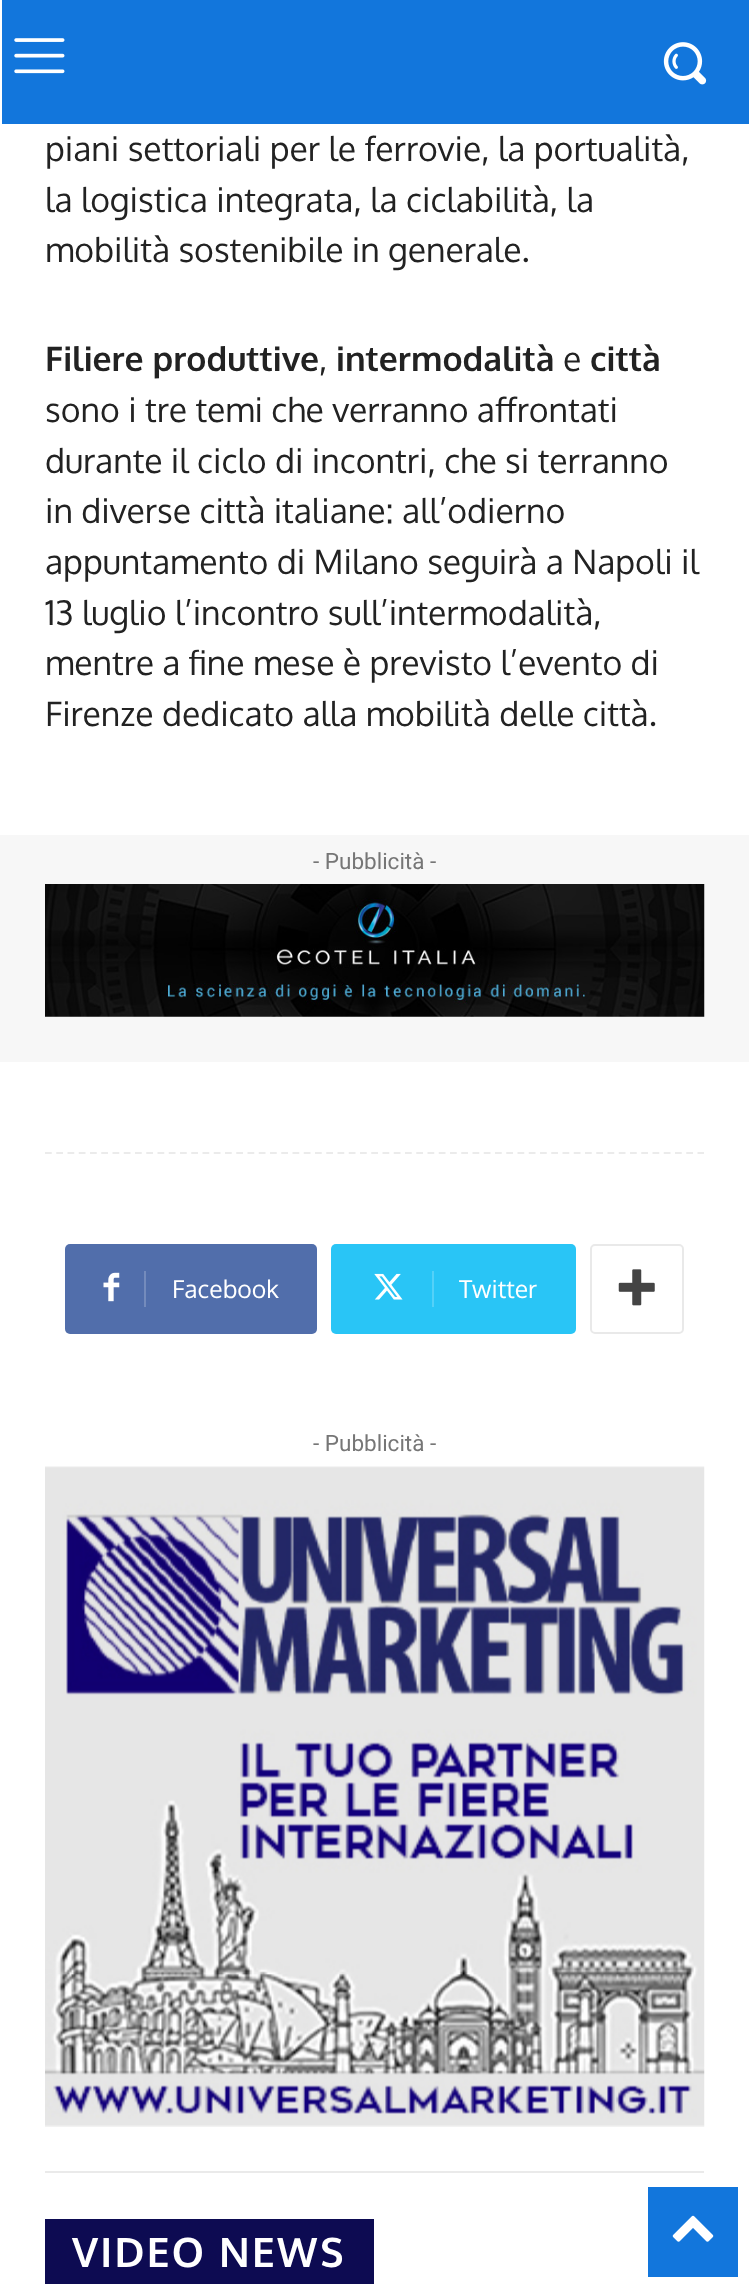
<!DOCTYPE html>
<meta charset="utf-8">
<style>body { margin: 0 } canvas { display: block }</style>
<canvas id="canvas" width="749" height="2284"></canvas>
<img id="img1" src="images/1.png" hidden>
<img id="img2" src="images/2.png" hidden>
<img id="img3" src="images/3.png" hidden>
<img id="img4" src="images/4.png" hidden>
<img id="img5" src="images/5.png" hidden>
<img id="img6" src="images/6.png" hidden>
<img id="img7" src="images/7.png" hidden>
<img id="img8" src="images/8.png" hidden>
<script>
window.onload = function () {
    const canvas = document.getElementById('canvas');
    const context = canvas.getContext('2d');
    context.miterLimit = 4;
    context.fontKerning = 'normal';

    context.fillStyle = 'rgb(255, 255, 255)';
    context.fillRect(0, 0, 749, 2284);
    context.fillStyle = 'rgb(18, 118, 220)';
    context.fillRect(2, 0, 747, 124);
    context.drawImage(document.getElementById('img1'), 14, 38, 51, 36);
    context.drawImage(document.getElementById('img2'), 663, 42, 44, 43);
    context.fillStyle = 'rgb(247, 247, 247)';
    context.fillRect(0, 835, 749, 227);
    context.drawImage(document.getElementById('img3'), 45, 884, 660, 133);
    context.beginPath();
    context.moveTo(45, 1153);
    context.lineTo(704, 1153);
    context.strokeStyle = 'rgb(235, 235, 235)';
    context.lineWidth = 2.2;
    context.setLineDash([6.75, 4.5]);
    context.stroke();
    context.fillStyle = 'rgb(81, 110, 171)';
    context.beginPath();
    context.roundRect(144, 1244, 173, 90, [0, 5, 5, 0]);
    context.fill();
    context.beginPath();
    context.roundRect(65, 1244, 93, 90, [5, 0, 0, 5]);
    context.fill();
    context.drawImage(document.getElementById('img4'), 103, 1272, 17, 30);
    context.fillStyle = 'rgb(116, 139, 188)';
    context.fillRect(144, 1271, 2, 36);
    context.fillStyle = 'rgb(41, 197, 246)';
    context.beginPath();
    context.roundRect(432, 1244, 144, 90, [0, 5, 5, 0]);
    context.fill();
    context.beginPath();
    context.roundRect(331, 1244, 115, 90, [5, 0, 0, 5]);
    context.fill();
    context.drawImage(document.getElementById('img5'), 374, 1273, 29, 27);
    context.fillStyle = 'rgb(84, 209, 248)';
    context.fillRect(432, 1271, 2, 36);
    context.beginPath();
    context.roundRect(591, 1245, 92, 88, 4);
    context.strokeStyle = 'rgb(233, 233, 233)';
    context.lineWidth = 2;
    context.setLineDash([]);
    context.stroke();
    context.drawImage(document.getElementById('img6'), 618, 1269, 37, 37);
    context.fillStyle = 'rgb(234, 234, 234)';
    context.fillRect(45, 2171, 659, 2);
    context.drawImage(document.getElementById('img7'), 45, 1466, 660, 661);
    context.fillStyle = 'rgb(13, 11, 82)';
    context.fillRect(45, 2219, 329, 65);
    context.fillStyle = 'rgb(18, 118, 220)';
    context.fillRect(648, 2187, 90, 90);
    context.drawImage(document.getElementById('img8'), 672, 2215, 42, 27);
    context.font = '33.75px Oxygen';
    context.fillStyle = 'rgb(34, 34, 34)';
    context.fillText('piani settoriali per le ferrovie, la portualità,', 45, 161);
    context.fillText('la logistica integrata, la ciclabilità, la', 45, 212);
    context.fillText('mobilità sostenibile in generale.', 45, 262);
    context.font = 'bold 33.75px Oxygen';
    context.fillText('Filiere produttive', 45, 371);
    context.font = '33.75px Oxygen';
    context.fillText(',', 319, 371);
    context.font = 'bold 33.75px Oxygen';
    context.fillText('intermodalità', 336, 371);
    context.font = '33.75px Oxygen';
    context.fillText('e', 563, 371);
    context.font = 'bold 33.75px Oxygen';
    context.fillText('città', 590, 371);
    context.font = '33.75px Oxygen';
    context.fillText('sono i tre temi che verranno affrontati', 45, 422);
    context.fillText('durante il ciclo di incontri, che si terranno', 45, 473);
    context.fillText('in diverse città italiane: all’odierno', 45, 523);
    context.fillText('appuntamento di Milano seguirà a Napoli il', 45, 574);
    context.fillText('13 luglio l’incontro sull’intermodalità,', 45, 625);
    context.fillText('mentre a fine mese è previsto l’evento di', 45, 675);
    context.fillText('Firenze dedicato alla mobilità delle città.', 45, 726);
    context.font = '22.5px Roboto';
    context.fillStyle = 'rgb(118, 118, 118)';
    context.fillText('- Pubblicità -', 313, 869);
    context.font = '24.75px Oxygen';
    context.fillStyle = 'rgb(255, 255, 255)';
    context.fillText('Facebook', 172, 1298);
    context.fillText('Twitter', 459, 1298);
    context.font = '22.5px Roboto';
    context.fillStyle = 'rgb(118, 118, 118)';
    context.fillText('- Pubblicità -', 313, 1451);
    context.letterSpacing = '2.25px';
    context.font = 'bold 40.5px Oxygen';
    context.fillStyle = 'rgb(255, 255, 255)';
    context.fillText('VIDEO NEWS', 72, 2267);
};
</script>
